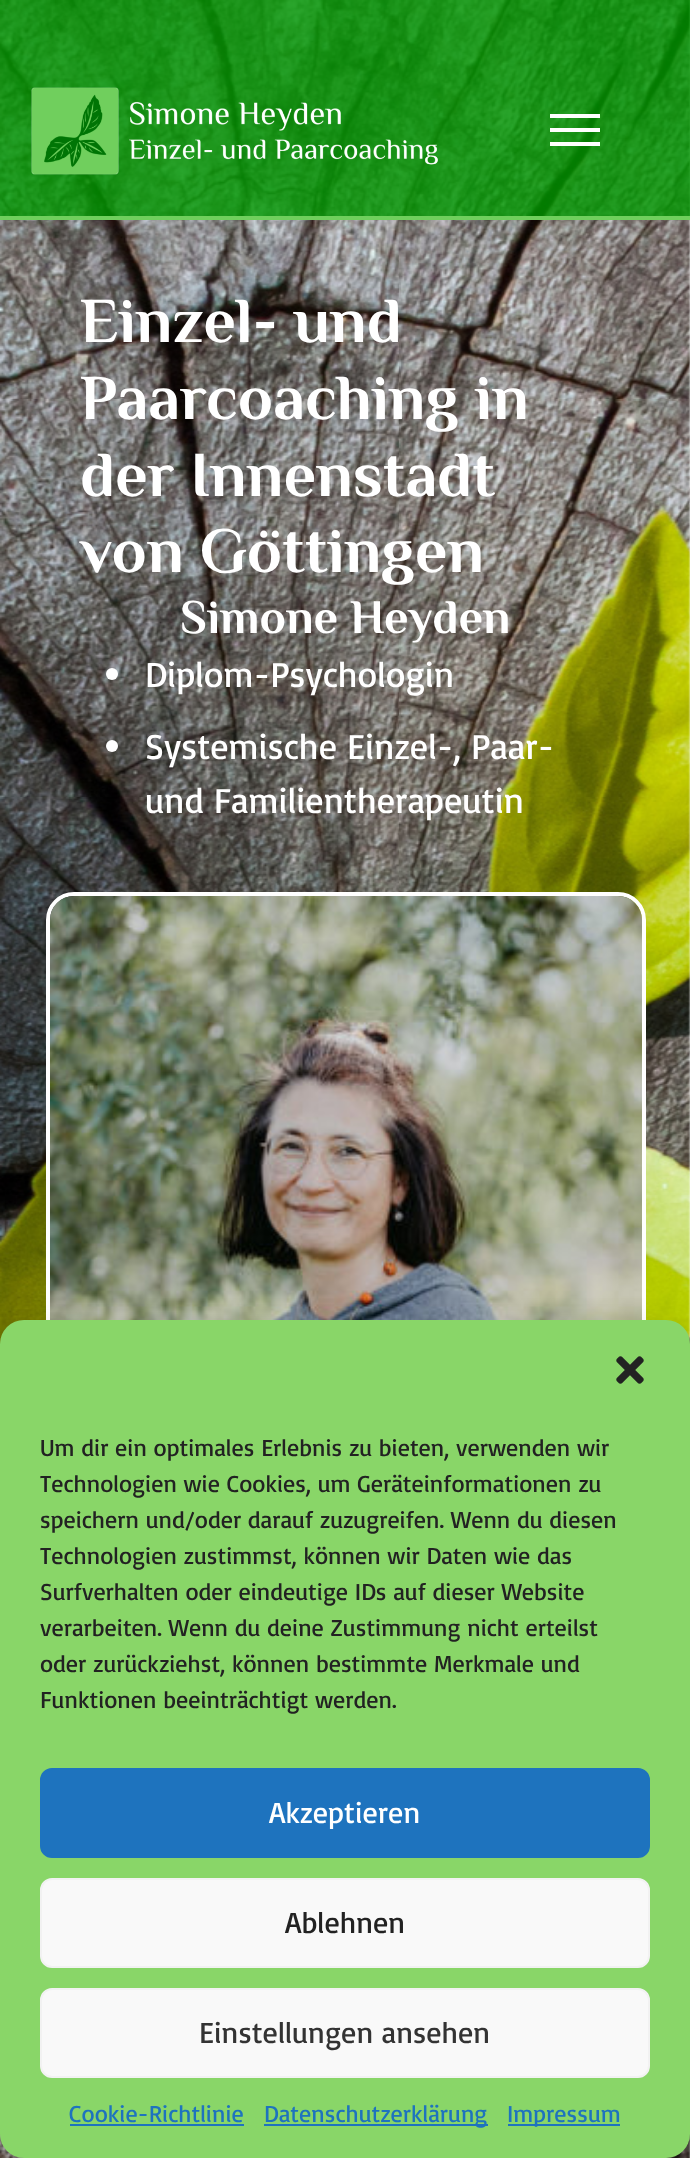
<!DOCTYPE html>
<meta charset="utf-8">
<style>body { margin: 0 } canvas { display: block }</style>
<canvas id="canvas" width="690" height="2158"></canvas>
<img id="img1" src="images/2.png" hidden>
<img id="img2" src="images/1.png" hidden>
<img id="img3" src="images/3.png" hidden>
<img id="img4" src="images/4.png" hidden>
<script>
window.onload = function () {
    const canvas = document.getElementById('canvas');
    const context = canvas.getContext('2d');
    context.miterLimit = 4;
    context.fontKerning = 'normal';

    context.fillStyle = 'rgb(255, 255, 255)';
    context.fillRect(0, 0, 690, 2158);
    context.drawImage(document.getElementById('img1'), 0, 0, 690, 2158);
    context.fillStyle = 'rgba(0, 153, 0, 0.8)';
    context.fillRect(0, 0, 690, 216);
    context.fillStyle = 'rgb(112, 207, 93)';
    context.fillRect(0, 216, 690, 4);
    context.drawImage(document.getElementById('img2'), 31, 87, 407, 88);
    context.fillStyle = 'rgb(255, 255, 255)';
    context.fillRect(550, 114, 50, 4);
    context.fillRect(550, 128, 50, 4);
    context.fillRect(550, 142, 50, 4);
    context.beginPath();
    context.arc(112, 674, 6, 0, 2 * Math.PI);
    context.fill();
    context.beginPath();
    context.arc(112, 746, 6, 0, 2 * Math.PI);
    context.fill();
    context.beginPath();
    context.roundRect(48, 894, 596, 596, 26);
    context.strokeStyle = 'rgb(255, 255, 255)';
    context.lineWidth = 4;
    context.stroke();
    context.drawImage(document.getElementById('img3'), 50, 896, 592, 424);
    context.fillStyle = 'rgba(0, 0, 0, 0.23)';
    context.filter = 'blur(6px)';
    context.beginPath();
    context.roundRect(0, 1332, 690, 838, 24);
    context.fill();
    context.filter = 'none';
    context.fillStyle = 'rgba(0, 0, 0, 0.19)';
    context.filter = 'blur(20px)';
    context.beginPath();
    context.roundRect(0, 1340, 690, 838, 24);
    context.fill();
    context.filter = 'none';
    context.fillStyle = 'rgb(137, 214, 104)';
    context.beginPath();
    context.roundRect(0, 1320, 690, 838, 24);
    context.fill();
    context.drawImage(document.getElementById('img4'), 616, 1356, 28, 28);
    context.fillStyle = 'rgb(30, 115, 190)';
    context.beginPath();
    context.roundRect(41, 1769, 608, 88, 11);
    context.fill();
    context.strokeStyle = 'rgb(30, 115, 190)';
    context.lineWidth = 2;
    context.stroke();
    context.fillStyle = 'rgb(249, 249, 249)';
    context.beginPath();
    context.roundRect(41, 1879, 608, 88, 11);
    context.fill();
    context.strokeStyle = 'rgb(242, 242, 242)';
    context.stroke();
    context.beginPath();
    context.roundRect(41, 1989, 608, 88, 11);
    context.fill();
    context.stroke();
    context.fillStyle = 'rgb(30, 115, 190)';
    context.fillRect(70, 2124, 174, 2);
    context.fillRect(264, 2124, 224, 2);
    context.fillRect(508, 2124, 112, 2);
    context.font = 'bold 64px Philosopher';
    context.fillStyle = 'rgb(255, 255, 255)';
    context.fillText('Einzel- und', 80, 342);
    context.fillText('Paarcoaching in', 80, 419);
    context.fillText('der Innenstadt', 80, 496);
    context.fillText('von Göttingen', 80, 572);
    context.font = 'bold 48px Philosopher';
    context.fillText('Simone Heyden', 180, 633);
    context.font = '36px Basic';
    context.fillText('Diplom-Psychologin', 145, 687);
    context.fillText('Systemische Einzel-, Paar-', 145, 759);
    context.fillText('und Familientherapeutin', 145, 813);
    context.font = '24px Basic';
    context.fillStyle = 'rgb(34, 34, 34)';
    context.fillText('Um dir ein optimales Erlebnis zu bieten, verwenden wir', 40, 1456);
    context.fillText('Technologien wie Cookies, um Geräteinformationen zu', 40, 1492);
    context.fillText('speichern und/oder darauf zuzugreifen. Wenn du diesen', 40, 1528);
    context.fillText('Technologien zustimmst, können wir Daten wie das', 40, 1564);
    context.fillText('Surfverhalten oder eindeutige IDs auf dieser Website', 40, 1600);
    context.fillText('verarbeiten. Wenn du deine Zustimmung nicht erteilst', 40, 1636);
    context.fillText('oder zurückziehst, können bestimmte Merkmale und', 40, 1672);
    context.fillText('Funktionen beeinträchtigt werden.', 40, 1708);
    context.font = '30px Basic';
    context.fillStyle = 'rgb(255, 255, 255)';
    context.fillText('Akzeptieren', 269, 1823);
    context.fillStyle = 'rgb(34, 34, 34)';
    context.fillText('Ablehnen', 285, 1933);
    context.fillStyle = 'rgb(51, 51, 51)';
    context.fillText('Einstellungen ansehen', 199, 2043);
    context.font = '24px Basic';
    context.fillStyle = 'rgb(30, 115, 190)';
    context.fillText('Cookie-Richtlinie', 69, 2122);
    context.fillText('Datenschutzerklärung', 264, 2122);
    context.fillText('Impressum', 507, 2122);
};
</script>
